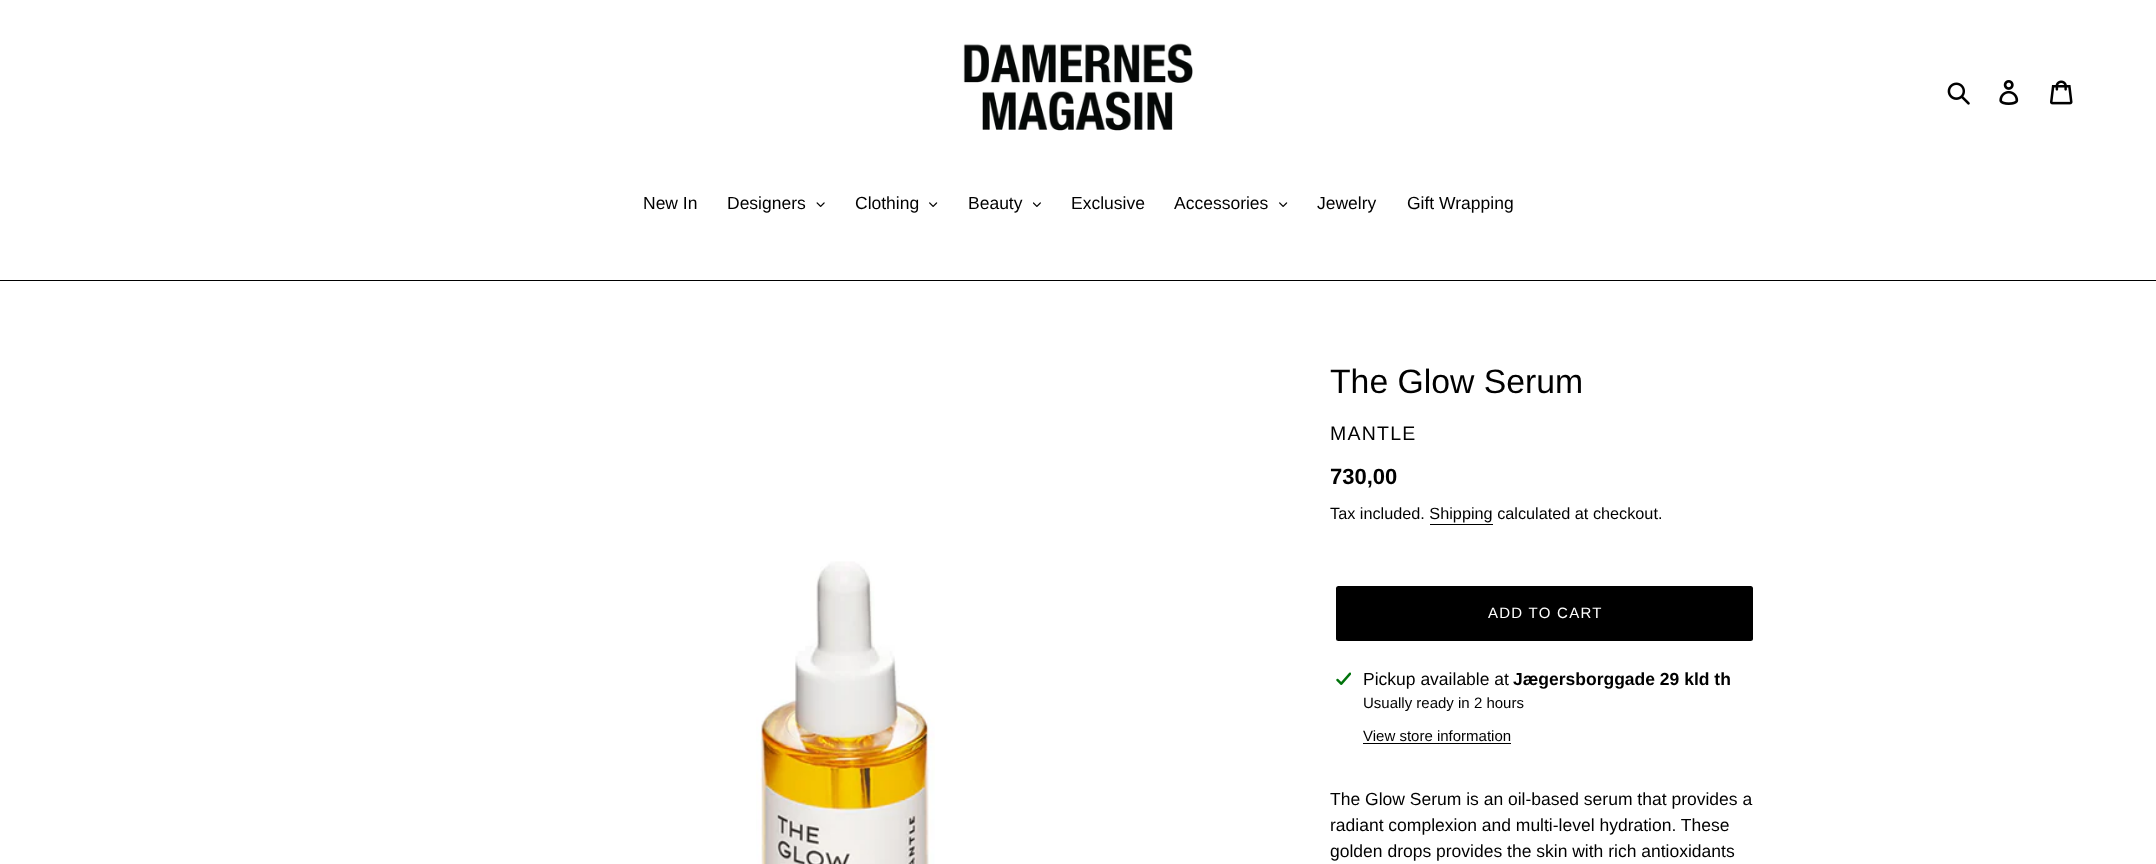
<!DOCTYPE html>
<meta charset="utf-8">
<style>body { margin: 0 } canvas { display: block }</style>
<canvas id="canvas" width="2156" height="864"></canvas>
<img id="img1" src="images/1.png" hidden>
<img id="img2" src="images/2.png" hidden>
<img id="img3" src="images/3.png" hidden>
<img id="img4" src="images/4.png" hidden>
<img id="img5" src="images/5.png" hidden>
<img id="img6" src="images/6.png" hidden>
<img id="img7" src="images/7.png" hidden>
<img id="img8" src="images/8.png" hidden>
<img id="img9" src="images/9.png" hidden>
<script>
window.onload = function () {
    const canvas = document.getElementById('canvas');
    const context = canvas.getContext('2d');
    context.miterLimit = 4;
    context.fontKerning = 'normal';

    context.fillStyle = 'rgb(255, 255, 255)';
    context.fillRect(0, 0, 2156, 864);
    context.drawImage(document.getElementById('img1'), 963, 43, 230, 88);
    context.drawImage(document.getElementById('img2'), 1947, 82, 23, 23);
    context.drawImage(document.getElementById('img3'), 1999, 80, 20, 25);
    context.drawImage(document.getElementById('img4'), 2050, 80, 23, 25);
    context.fillStyle = 'rgb(0, 0, 0)';
    context.fillRect(0, 280, 2156, 1);
    context.drawImage(document.getElementById('img5'), 816, 202, 9, 5);
    context.drawImage(document.getElementById('img6'), 929, 202, 9, 5);
    context.drawImage(document.getElementById('img7'), 1033, 202, 8, 5);
    context.drawImage(document.getElementById('img6'), 1279, 202, 9, 5);
    context.drawImage(document.getElementById('img8'), 756, 561, 179, 303);
    context.fillRect(1430, 524, 63, 1);
    context.beginPath();
    context.roundRect(1336, 586, 417, 55, 2.5);
    context.fill();
    context.drawImage(document.getElementById('img9'), 1336, 672, 15, 13);
    context.fillRect(1363, 743, 148, 1);
    context.font = '17.5px Liberation Sans';
    context.fillText('New In', 643, 209);
    context.fillText('Designers', 727, 209);
    context.fillText('Clothing', 855, 209);
    context.fillText('Beauty', 968, 209);
    context.fillText('Exclusive', 1071, 209);
    context.fillText('Accessories', 1174, 209);
    context.fillText('Jewelry', 1317, 209);
    context.fillText('Gift Wrapping', 1407, 209);
    context.font = '33.75px Liberation Sans';
    context.fillText('The Glow Serum', 1330, 393);
    context.letterSpacing = '1.25px';
    context.font = '19.5px Liberation Sans';
    context.fillText('MANTLE', 1330, 440);
    context.letterSpacing = '0px';
    context.font = 'bold 22px Liberation Sans';
    context.fillText('730,00', 1330, 484);
    context.font = '16.25px Liberation Sans';
    context.fillText('Tax included. Shipping calculated at checkout.', 1330, 519);
    context.letterSpacing = '1.25px';
    context.font = '15px Liberation Sans';
    context.fillStyle = 'rgb(255, 255, 255)';
    context.fillText('ADD TO CART', 1488, 618);
    context.letterSpacing = '0px';
    context.font = '17.5px Liberation Sans';
    context.fillStyle = 'rgb(0, 0, 0)';
    context.fillText('Pickup available at', 1363, 685);
    context.font = 'bold 17.5px Liberation Sans';
    context.fillText('Jægersborggade 29 kld th', 1513, 685);
    context.font = '15px Liberation Sans';
    context.fillText('Usually ready in 2 hours', 1363, 708);
    context.fillText('View store information', 1363, 741);
    context.font = '17.5px Liberation Sans';
    context.fillText('The Glow Serum is an oil-based serum that provides a', 1330, 805);
    context.fillText('radiant complexion and multi-level hydration. These', 1330, 831);
    context.fillText('golden drops provides the skin with rich antioxidants', 1330, 857);
};
</script>
